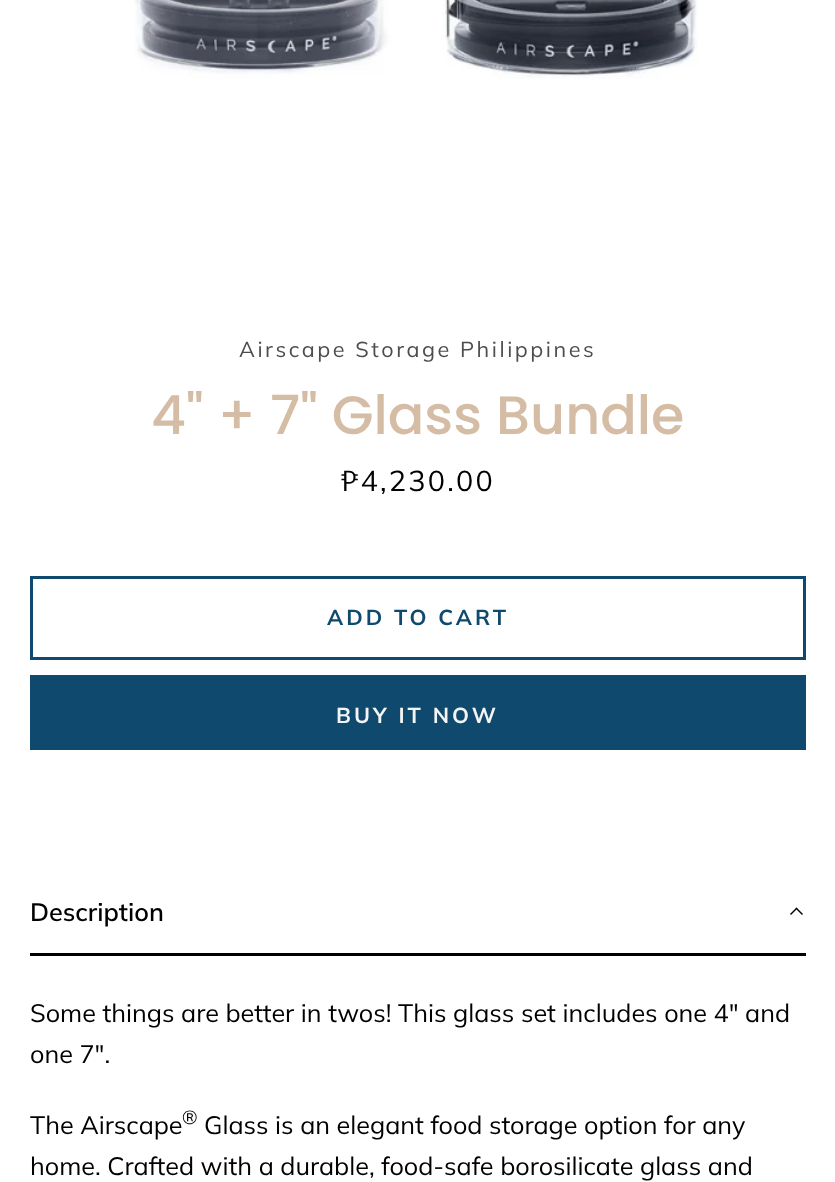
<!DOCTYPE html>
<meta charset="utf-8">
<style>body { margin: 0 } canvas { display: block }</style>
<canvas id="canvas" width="835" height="1182"></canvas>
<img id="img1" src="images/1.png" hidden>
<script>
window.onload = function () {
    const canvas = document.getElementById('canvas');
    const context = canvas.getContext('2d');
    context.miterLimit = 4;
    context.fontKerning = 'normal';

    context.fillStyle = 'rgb(255, 255, 255)';
    context.fillRect(0, 0, 835, 1182);
    context.drawImage(document.getElementById('img1'), 134, 0, 564, 79);
    context.strokeStyle = 'rgb(15, 73, 109)';
    context.lineWidth = 3;
    context.strokeRect(31.5, 577.5, 773, 81);
    context.fillStyle = 'rgb(15, 73, 109)';
    context.fillRect(30, 675, 776, 75);
    context.fillStyle = 'rgb(0, 0, 0)';
    context.fillRect(30, 953, 776, 3);
    context.beginPath();
    context.moveTo(791, 915);
    context.lineTo(790, 914);
    context.lineTo(796.5, 907.5);
    context.lineTo(797.5, 908.5);
    context.closePath();
    context.fill();
    context.beginPath();
    context.moveTo(802, 915);
    context.lineTo(795.5, 908.5);
    context.lineTo(796.5, 907.5);
    context.lineTo(803, 914);
    context.closePath();
    context.fill();
    context.letterSpacing = '2.55px';
    context.font = '21.6px Muli';
    context.fillStyle = 'rgb(77, 77, 77)';
    context.fillText('Airscape Storage Philippines', 239, 357);
    context.letterSpacing = '0px';
    context.font = '500 54px Poppins';
    context.fillStyle = 'rgb(213, 189, 165)';
    context.fillText('4" + 7" Glass Bundle', 151, 434);
    context.letterSpacing = '2.25px';
    context.font = '28.75px Muli';
    context.fillStyle = 'rgb(0, 0, 0)';
    context.fillText('₱4,230.00', 341, 491);
    context.letterSpacing = '3px';
    context.font = 'bold 21.6px Muli';
    context.fillStyle = 'rgb(15, 73, 109)';
    context.fillText('ADD TO CART', 327, 625);
    context.fillStyle = 'rgb(243, 244, 243)';
    context.fillText('BUY IT NOW', 336, 723);
    context.letterSpacing = '0px';
    context.font = '600 25.2px Muli';
    context.fillStyle = 'rgb(0, 0, 0)';
    context.fillText('Description', 30, 921);
    context.font = '25.2px Muli';
    context.fillText('Some things are better in twos! This glass set includes one 4" and', 30, 1022);
    context.fillText('one 7".', 30, 1063);
    context.fillText('The Airscape', 30, 1134);
    context.font = '19px Muli';
    context.fillText('®', 182, 1124);
    context.font = '25.2px Muli';
    context.fillText('Glass is an elegant food storage option for any', 204, 1134);
    context.fillText('home. Crafted with a durable, food-safe borosilicate glass and', 30, 1175);
};
</script>
